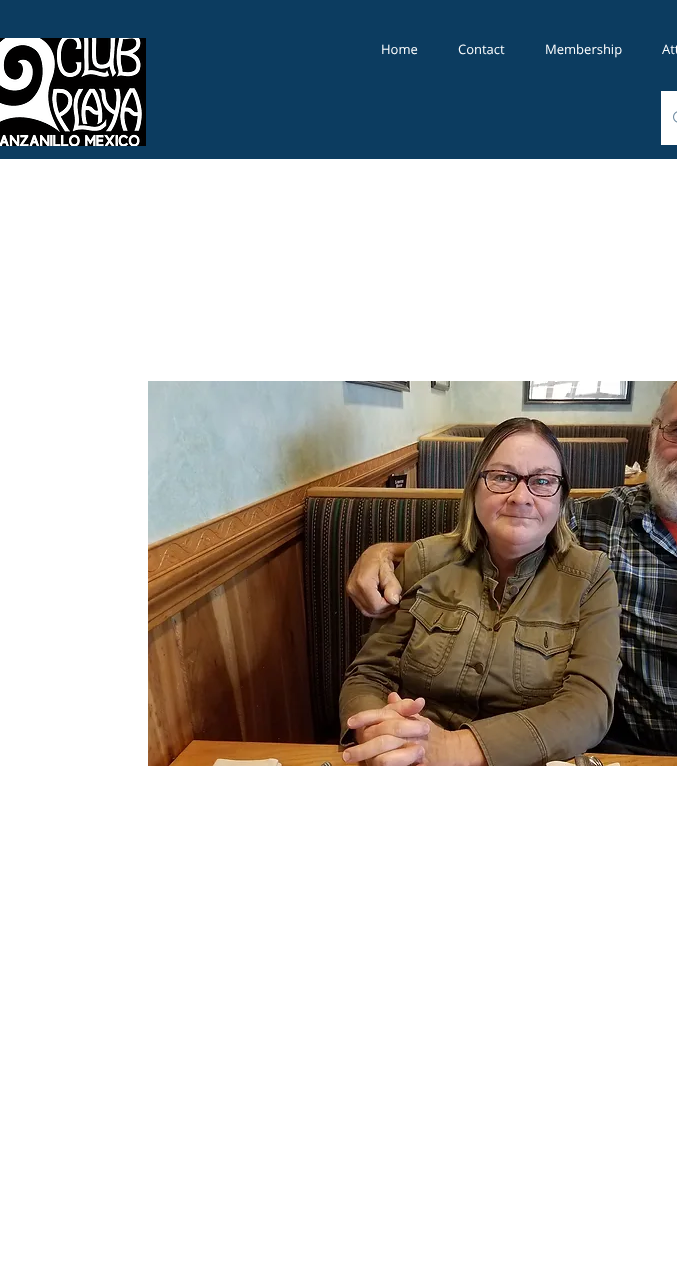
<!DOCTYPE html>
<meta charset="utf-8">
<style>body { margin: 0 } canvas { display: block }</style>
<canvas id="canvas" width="677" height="1273"></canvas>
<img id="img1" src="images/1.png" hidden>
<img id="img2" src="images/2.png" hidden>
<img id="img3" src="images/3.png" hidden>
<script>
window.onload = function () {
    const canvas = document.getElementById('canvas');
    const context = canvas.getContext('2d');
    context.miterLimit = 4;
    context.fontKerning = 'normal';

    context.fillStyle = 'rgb(255, 255, 255)';
    context.fillRect(0, 0, 677, 1273);
    context.fillStyle = 'rgb(12, 60, 96)';
    context.fillRect(0, 0, 677, 159);
    context.drawImage(document.getElementById('img1'), 0, 38, 146, 108);
    context.fillStyle = 'rgb(255, 255, 255)';
    context.fillRect(661, 91, 16, 54);
    context.drawImage(document.getElementById('img2'), 673, 111, 4, 12);
    context.drawImage(document.getElementById('img3'), 148, 381, 529, 385);
    context.font = '13px Open Sans';
    context.fillText('Home', 381, 54);
    context.fillText('Contact', 458, 54);
    context.fillText('Membership', 545, 54);
    context.fillText('Att', 662, 54);
};
</script>
